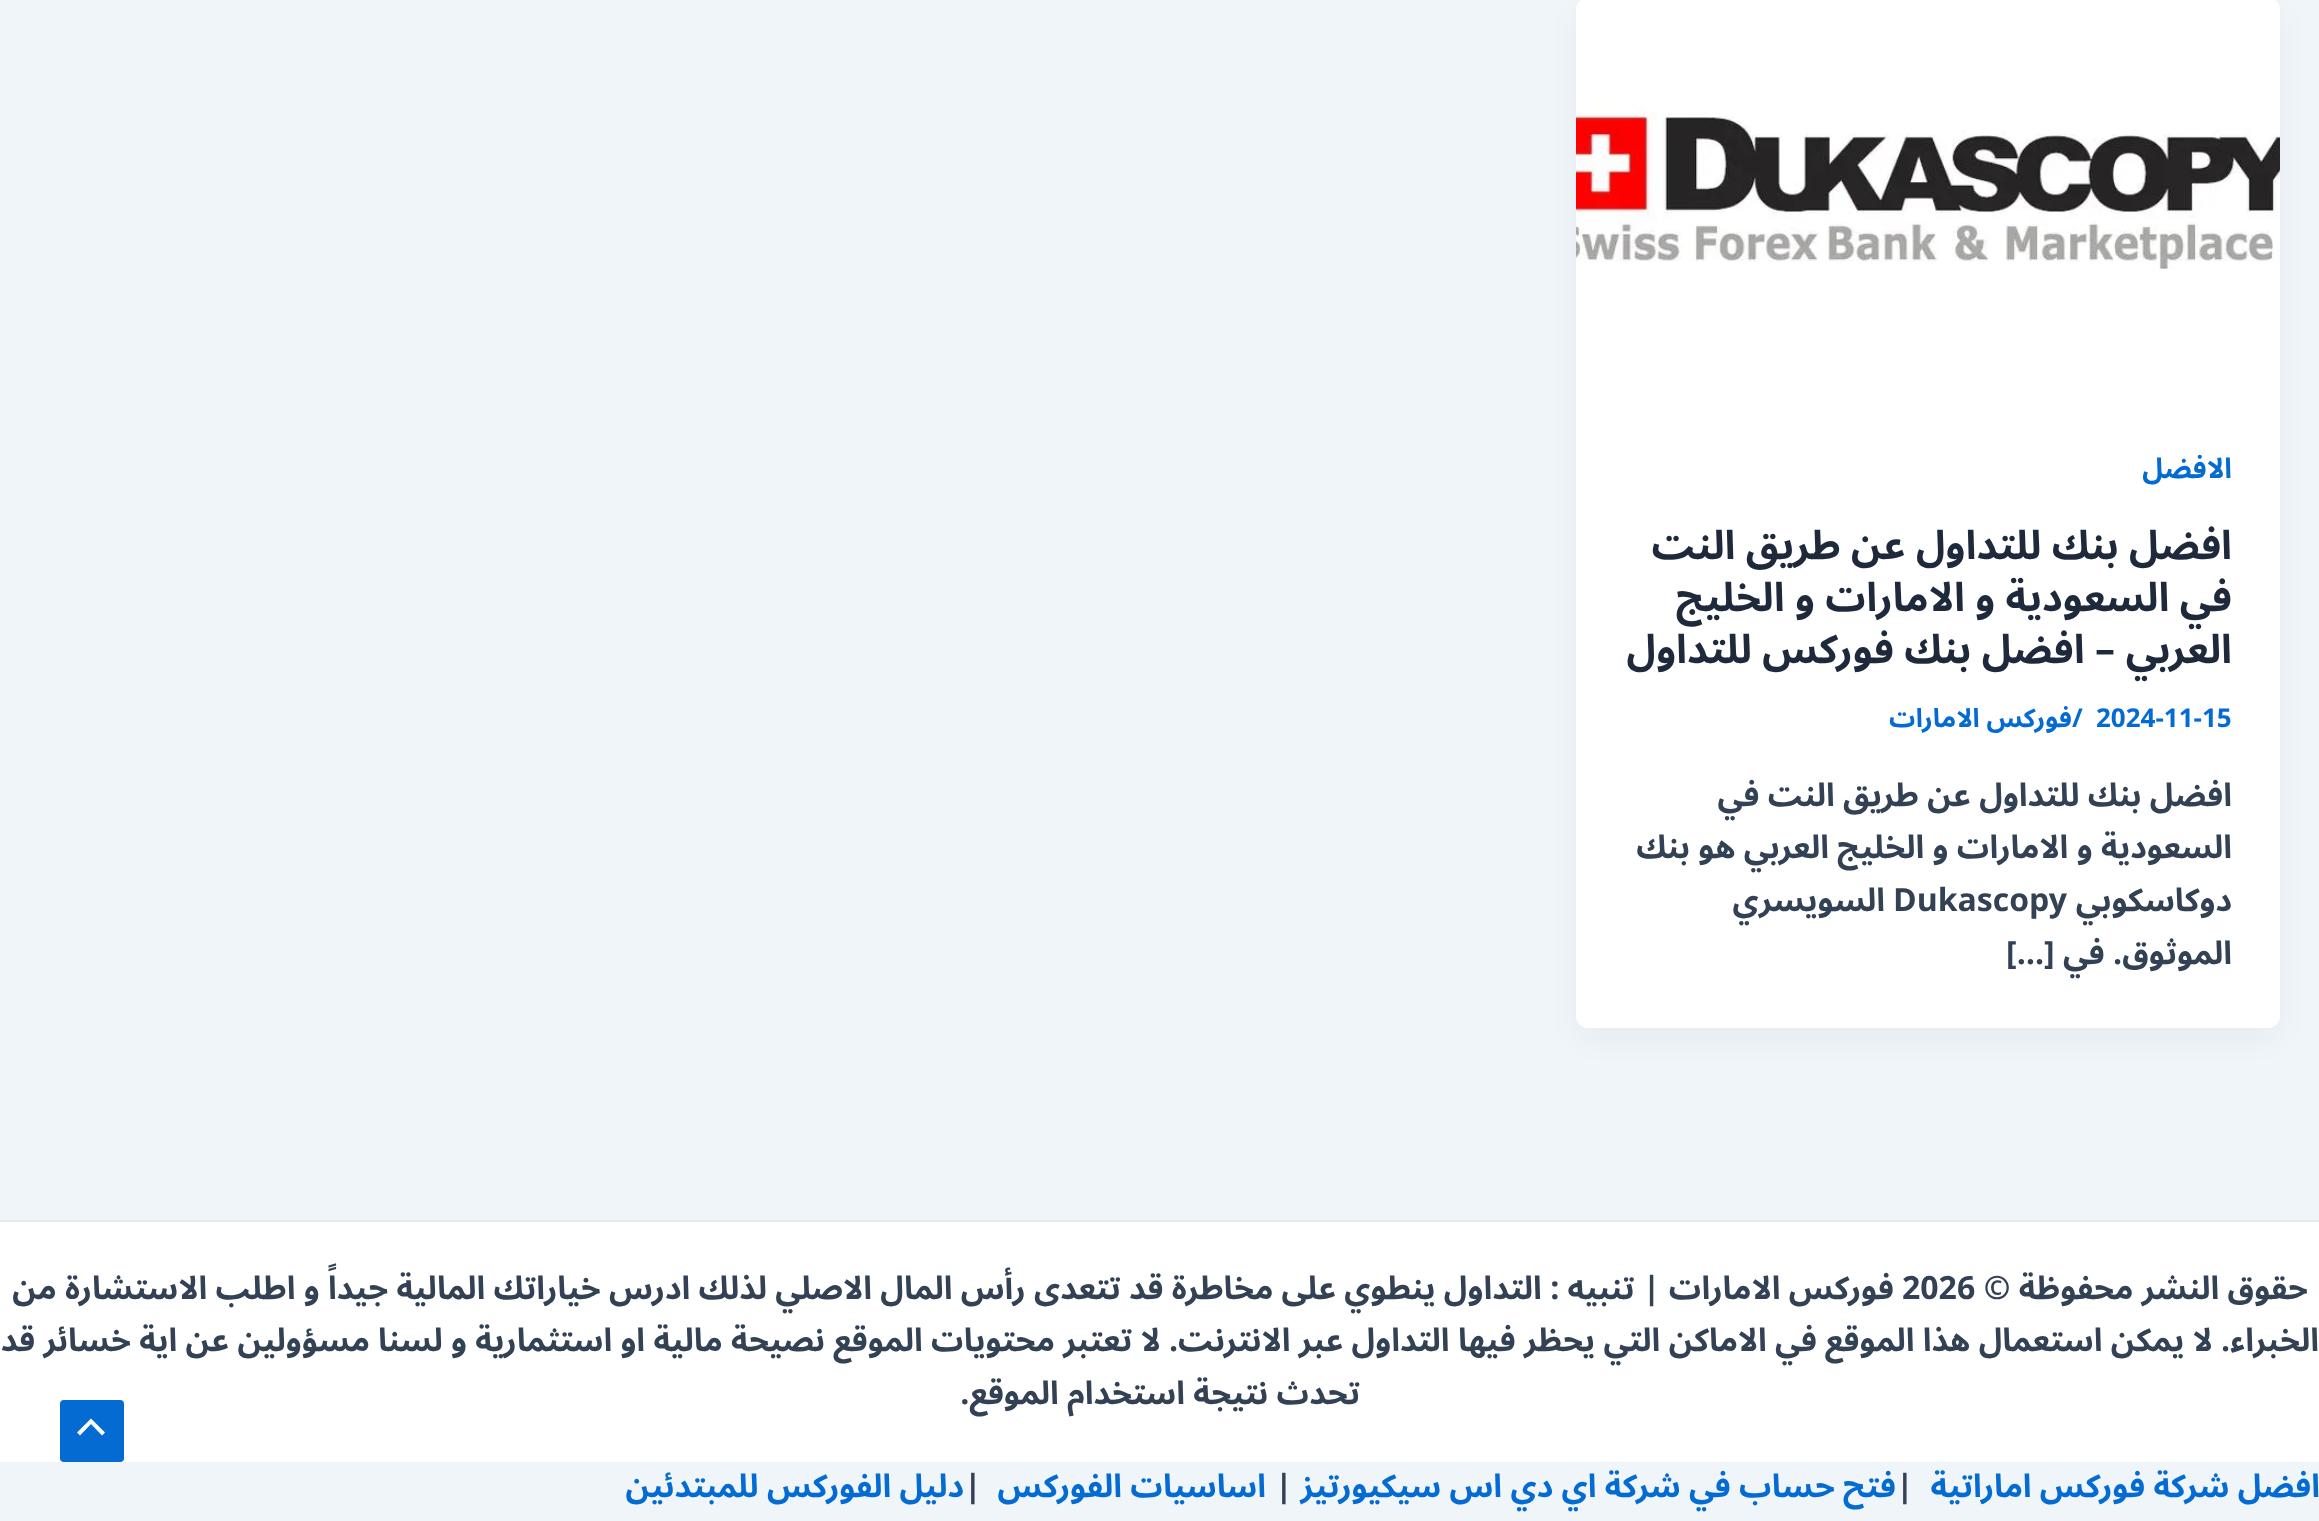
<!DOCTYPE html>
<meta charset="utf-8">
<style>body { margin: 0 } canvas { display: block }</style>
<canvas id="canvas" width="2319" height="1521"></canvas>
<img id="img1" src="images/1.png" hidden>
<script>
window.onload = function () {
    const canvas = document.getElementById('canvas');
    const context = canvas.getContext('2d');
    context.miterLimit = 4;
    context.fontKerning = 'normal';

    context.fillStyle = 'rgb(240, 245, 250)';
    context.fillRect(0, 0, 2319, 1521);
    context.fillStyle = 'rgba(16, 24, 40, 0.05)';
    context.filter = 'blur(15px)';
    context.beginPath();
    context.roundRect(1580, 14, 696, 1022, 8);
    context.fill();
    context.filter = 'none';
    context.fillStyle = 'rgb(255, 255, 255)';
    context.beginPath();
    context.roundRect(1576, -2, 704, 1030, 12);
    context.fill();
    context.drawImage(document.getElementById('img1'), 1576, 1, 704, 269);
    context.fillRect(0, 1222, 2319, 240);
    context.fillStyle = 'rgb(234, 234, 234)';
    context.fillRect(0, 1220, 2319, 2);
    context.fillStyle = 'rgb(4, 107, 210)';
    context.beginPath();
    context.roundRect(60, 1400, 64, 62, 4);
    context.fill();
    context.fillStyle = 'rgb(255, 255, 255)';
    context.beginPath();
    context.moveTo(105, 1432.5);
    context.lineTo(91, 1418.5);
    context.lineTo(77, 1432.5);
    context.lineTo(80, 1435.5);
    context.lineTo(91, 1424);
    context.lineTo(102, 1435.5);
    context.closePath();
    context.fill();
    context.direction = 'rtl';
    context.font = 'bold 28px Noto Sans Arabic';
    context.fillStyle = 'rgb(4, 107, 210)';
    context.fillText('الافضل', 2232, 478);
    context.font = 'bold 40px Noto Sans Arabic';
    context.fillStyle = 'rgb(30, 41, 59)';
    context.fillText('افضل بنك للتداول عن طريق النت', 2232, 559);
    context.fillText('في السعودية و الامارات و الخليج', 2232, 611);
    context.fillText('العربي', 2232, 663);
    context.fillText('– افضل بنك فوركس للتداول', 2115, 663);
    context.direction = 'ltr';
    context.font = 'bold 26px Noto Sans Arabic';
    context.fillStyle = 'rgb(4, 107, 210)';
    context.fillText('2024-11-15', 2096, 727);
    context.fillText('/', 2072, 727);
    context.direction = 'rtl';
    context.fillText('فوركس الامارات', 2072, 727);
    context.font = 'bold 32px Noto Sans Arabic';
    context.fillStyle = 'rgb(51, 65, 85)';
    context.fillText('افضل بنك للتداول عن طريق النت في', 2232, 806);
    context.fillText('السعودية و الامارات و الخليج العربي هو بنك', 2232, 858);
    context.fillText('دوكاسكوبي', 2232, 911);
    context.direction = 'ltr';
    context.fillText('Dukascopy', 1893, 911);
    context.direction = 'rtl';
    context.fillText('السويسري', 1885, 911);
    context.fillText('الموثوق. في […]', 2232, 964);
    context.fillText('حقوق النشر محفوظة ©', 2308, 1299);
    context.direction = 'ltr';
    context.fillText('2026', 1902, 1299);
    context.direction = 'rtl';
    context.fillText('فوركس الامارات | تنبيه : التداول ينطوي على مخاطرة قد تتعدى رأس المال الاصلي لذلك ادرس خياراتك المالية جيداً و اطلب الاستشارة من', 1894, 1299);
    context.fillText('الخبراء. لا يمكن استعمال هذا الموقع في الاماكن التي يحظر فيها التداول عبر الانترنت. لا تعتبر محتويات الموقع نصيحة مالية او استثمارية و لسنا مسؤولين عن اية خسائر قد', 2319, 1351);
    context.fillText('تحدث نتيجة استخدام الموقع.', 1360, 1404);
    context.fillStyle = 'rgb(4, 107, 210)';
    context.fillText('افضل شركة فوركس اماراتية', 2320, 1497);
    context.direction = 'ltr';
    context.fillStyle = 'rgb(51, 65, 85)';
    context.fillText('|', 1896, 1497);
    context.direction = 'rtl';
    context.fillStyle = 'rgb(4, 107, 210)';
    context.fillText('فتح حساب في شركة اي دي اس سيكيورتيز', 1896, 1497);
    context.direction = 'ltr';
    context.fillStyle = 'rgb(51, 65, 85)';
    context.fillText('|', 1275, 1497);
    context.direction = 'rtl';
    context.fillStyle = 'rgb(4, 107, 210)';
    context.fillText('اساسيات الفوركس', 1266, 1497);
    context.direction = 'ltr';
    context.fillStyle = 'rgb(51, 65, 85)';
    context.fillText('|', 964, 1497);
    context.direction = 'rtl';
    context.fillStyle = 'rgb(4, 107, 210)';
    context.fillText('دليل الفوركس للمبتدئين', 964, 1497);
};
</script>
